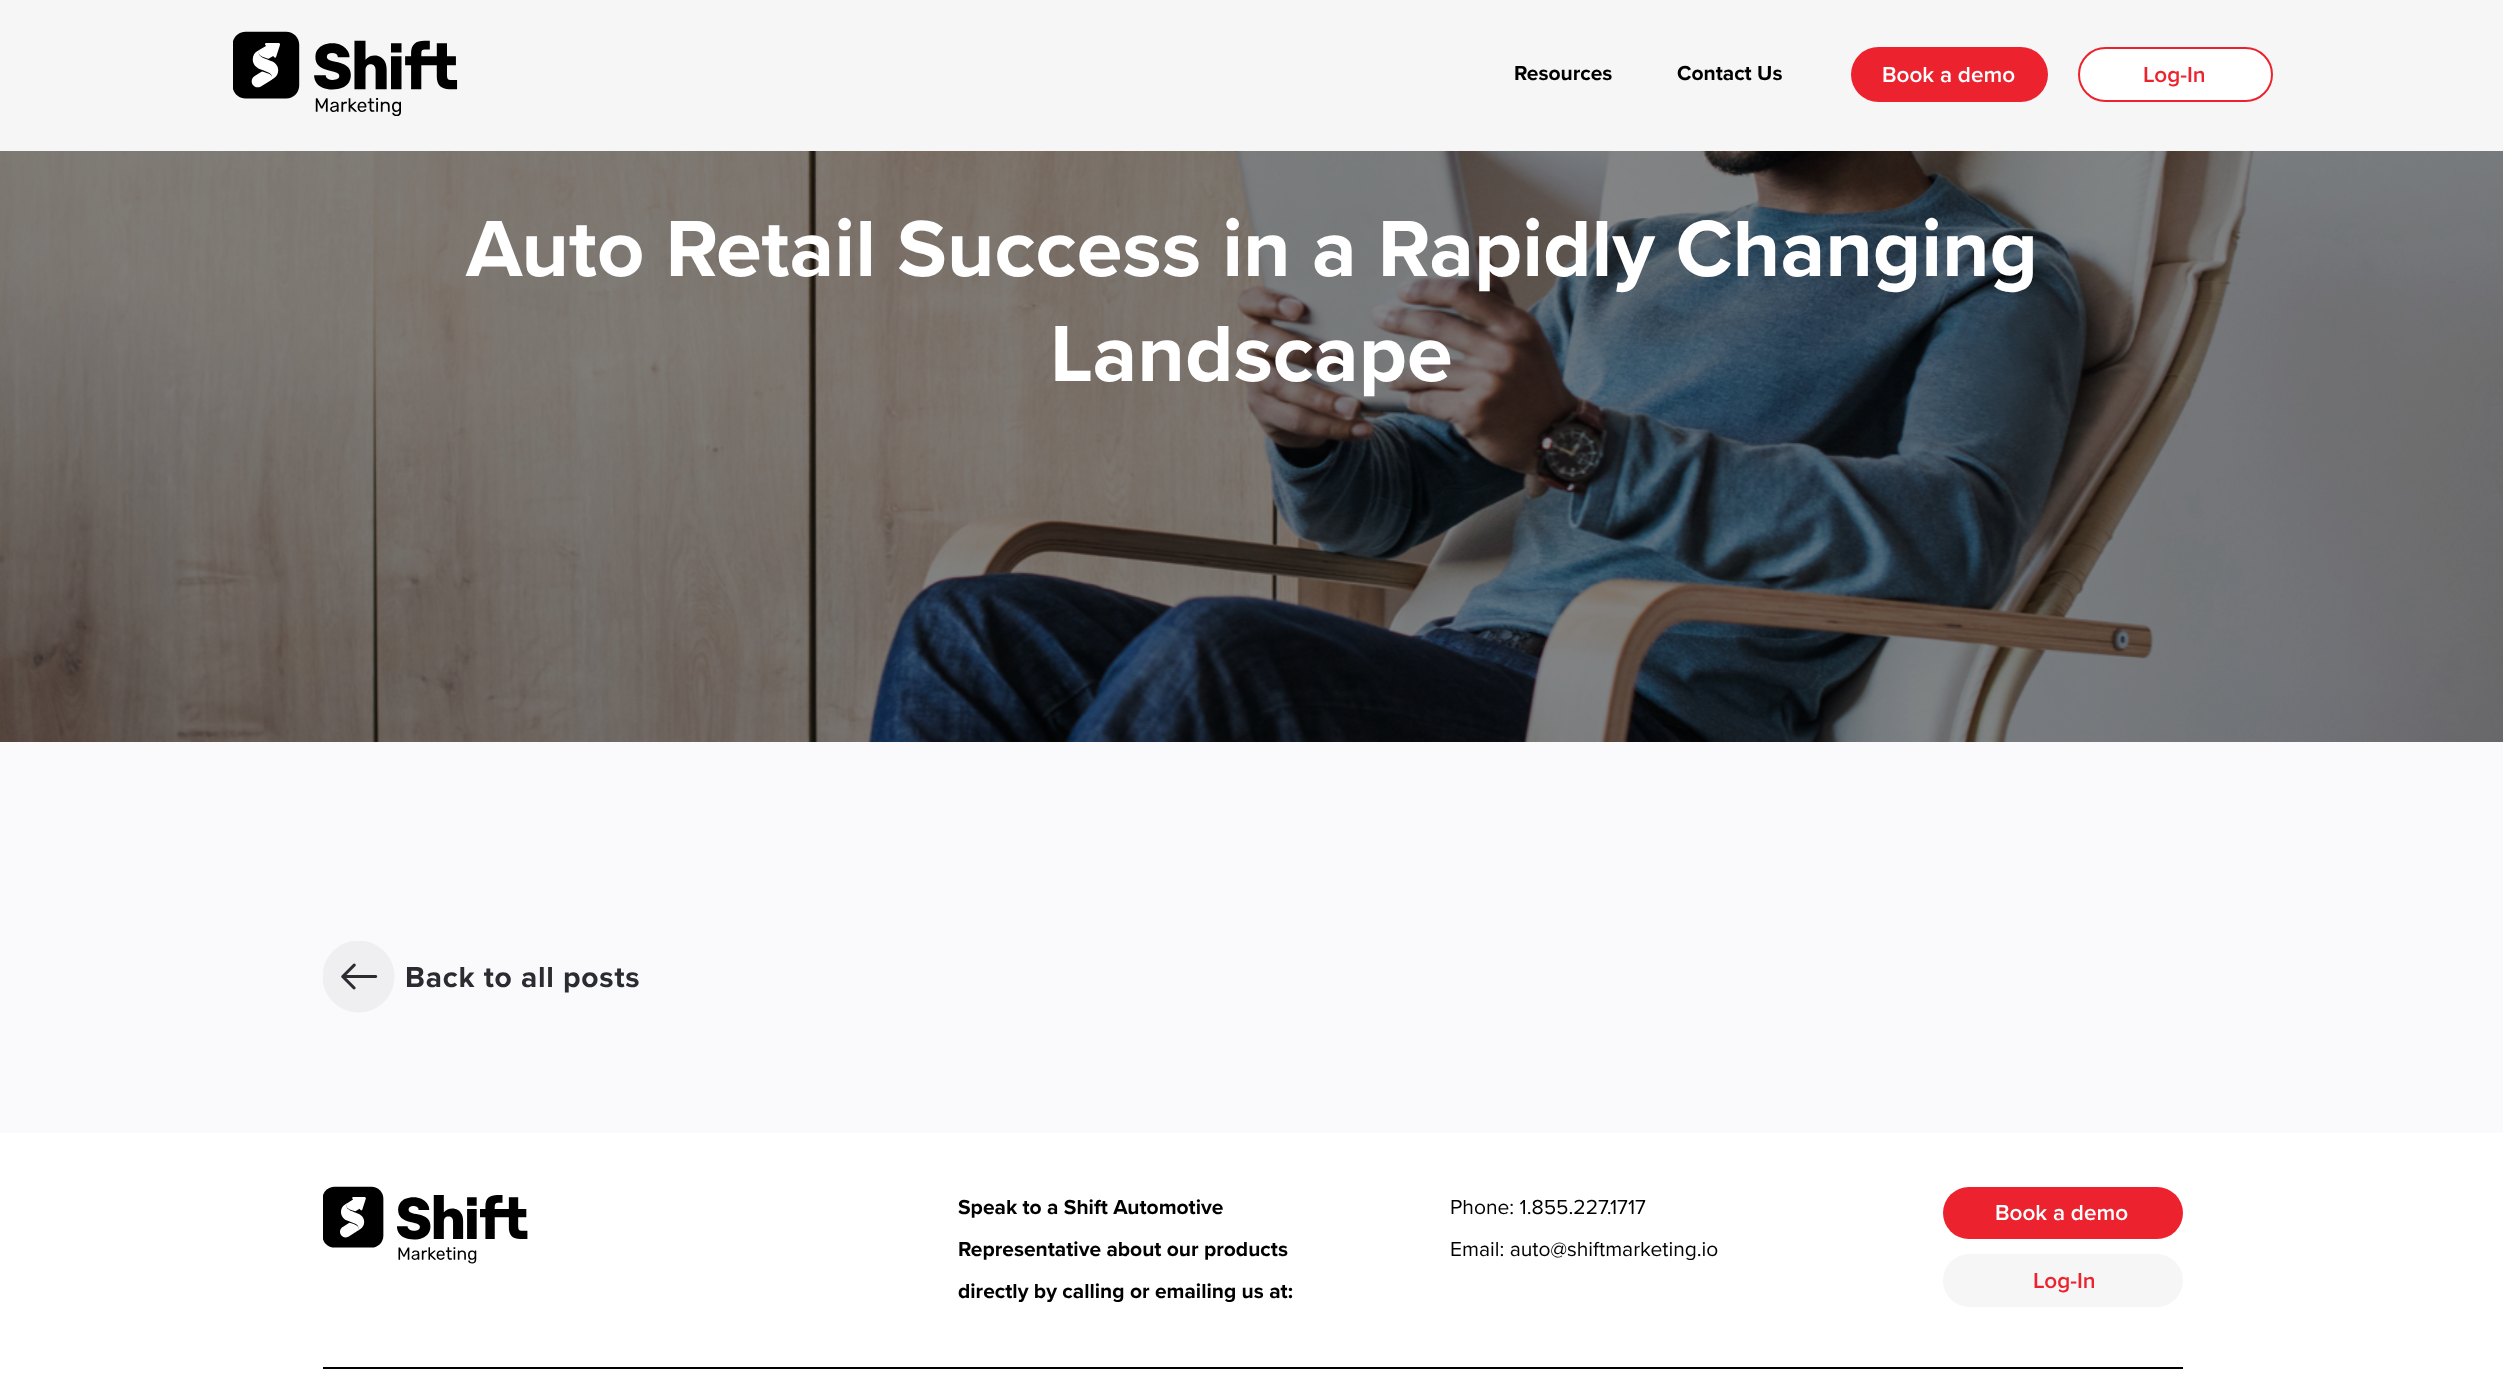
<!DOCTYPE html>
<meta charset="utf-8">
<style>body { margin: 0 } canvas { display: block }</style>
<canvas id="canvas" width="2503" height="1376"></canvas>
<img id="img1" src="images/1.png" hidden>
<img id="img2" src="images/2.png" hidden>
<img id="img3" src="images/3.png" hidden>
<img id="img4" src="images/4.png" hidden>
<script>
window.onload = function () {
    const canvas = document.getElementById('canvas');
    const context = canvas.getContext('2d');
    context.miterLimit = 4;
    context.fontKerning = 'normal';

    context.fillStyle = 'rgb(255, 255, 255)';
    context.fillRect(0, 0, 2503, 1376);
    context.fillStyle = 'rgb(246, 246, 246)';
    context.fillRect(0, 0, 2503, 151);
    context.drawImage(document.getElementById('img1'), 233, 31, 225, 85);
    context.fillStyle = 'rgb(236, 35, 47)';
    context.beginPath();
    context.roundRect(1851, 47, 197, 55, 27.5);
    context.fill();
    context.fillStyle = 'rgb(255, 255, 255)';
    context.beginPath();
    context.roundRect(2079, 48, 193, 53, 26.5);
    context.fill();
    context.strokeStyle = 'rgb(236, 35, 47)';
    context.lineWidth = 2;
    context.stroke();
    context.drawImage(document.getElementById('img2'), 0, 151, 2503, 591);
    context.fillStyle = 'rgb(250, 249, 251)';
    context.fillRect(0, 742, 2503, 391);
    context.drawImage(document.getElementById('img3'), 323, 941, 72, 72);
    context.drawImage(document.getElementById('img4'), 323, 1186, 205, 78);
    context.fillStyle = 'rgb(236, 35, 47)';
    context.beginPath();
    context.roundRect(1943, 1187, 240, 52, 26);
    context.fill();
    context.fillStyle = 'rgb(246, 246, 246)';
    context.beginPath();
    context.roundRect(1943, 1254, 240, 53, 26.5);
    context.fill();
    context.fillStyle = 'rgb(0, 0, 0)';
    context.fillRect(323, 1367, 1860, 2);
    context.font = 'bold 21px Proxima Nova';
    context.fillText('Resources', 1514, 80);
    context.fillText('Contact Us', 1677, 80);
    context.font = '600 22.5px Proxima Nova';
    context.fillStyle = 'rgb(255, 255, 255)';
    context.fillText('Book a demo', 1882, 82);
    context.fillStyle = 'rgb(236, 35, 47)';
    context.fillText('Log-In', 2143, 82);
    context.font = 'bold 82.5px Proxima Nova';
    context.fillStyle = 'rgb(255, 255, 255)';
    context.fillText('Auto Retail Success in a Rapidly Changing', 466, 276);
    context.fillText('Landscape', 1050, 381);
    context.letterSpacing = '0.75px';
    context.font = 'bold 30px Proxima Nova';
    context.fillStyle = 'rgb(43, 43, 50)';
    context.fillText('Back to all posts', 405, 987);
    context.letterSpacing = '0px';
    context.font = 'bold 21px Proxima Nova';
    context.fillStyle = 'rgb(0, 0, 0)';
    context.fillText('Speak to a Shift Automotive', 958, 1214);
    context.fillText('Representative about our products', 958, 1256);
    context.fillText('directly by calling or emailing us at:', 958, 1298);
    context.font = '21px Proxima Nova';
    context.fillText('Phone: 1.855.227.1717', 1450, 1214);
    context.fillText('Email: auto@shiftmarketing.io', 1450, 1256);
    context.font = '600 22.5px Proxima Nova';
    context.fillStyle = 'rgb(255, 255, 255)';
    context.fillText('Book a demo', 1995, 1220);
    context.fillStyle = 'rgb(236, 35, 47)';
    context.fillText('Log-In', 2033, 1288);
};
</script>
